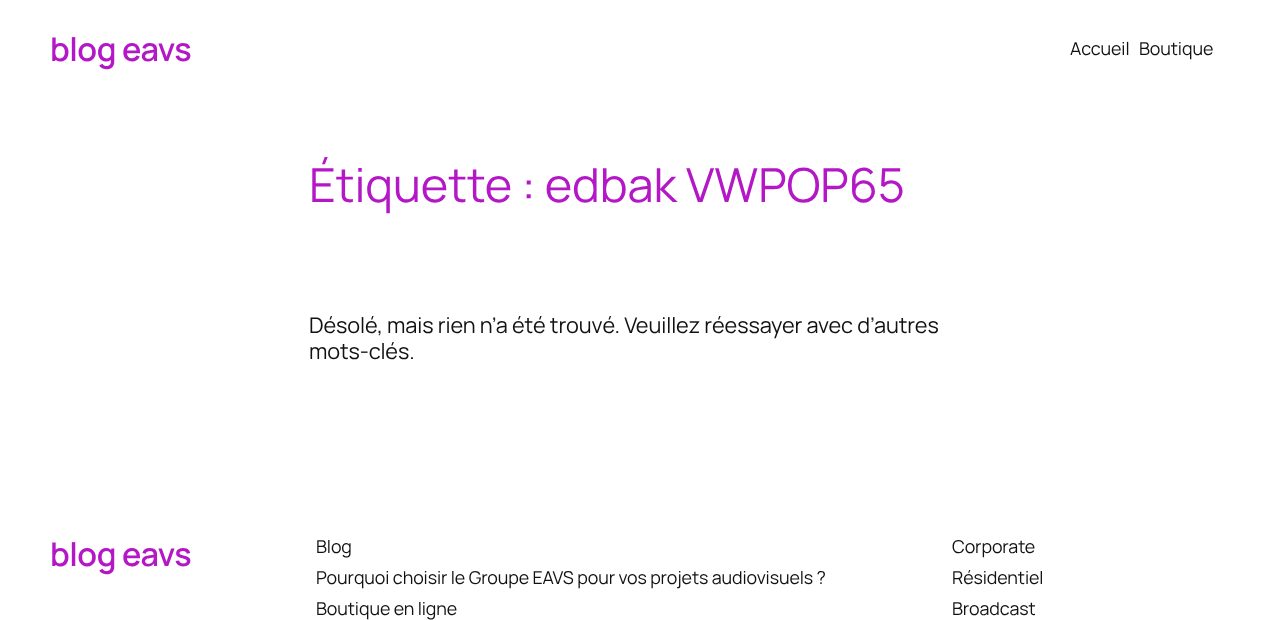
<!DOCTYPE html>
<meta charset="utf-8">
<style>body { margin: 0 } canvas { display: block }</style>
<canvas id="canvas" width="1263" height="620"></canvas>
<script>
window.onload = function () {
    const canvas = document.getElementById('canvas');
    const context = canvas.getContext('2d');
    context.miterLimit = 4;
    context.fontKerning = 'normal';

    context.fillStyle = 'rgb(255, 255, 255)';
    context.fillRect(0, 0, 1263, 620);
    context.letterSpacing = '-0.5px';
    context.font = '600 32.5px Manrope';
    context.fillStyle = 'rgb(179, 23, 198)';
    context.fillText('blog eavs', 50, 61);
    context.letterSpacing = '-0.1px';
    context.font = '17.85px Manrope';
    context.fillStyle = 'rgb(17, 17, 17)';
    context.fillText('Accueil', 1070, 55);
    context.fillText('Boutique', 1139, 55);
    context.font = '47px Manrope';
    context.fillStyle = 'rgb(179, 23, 198)';
    context.fillText('Étiquette : edbak VWPOP65', 309, 202);
    context.font = '21.7px Manrope';
    context.fillStyle = 'rgb(17, 17, 17)';
    context.fillText('Désolé, mais rien n’a été trouvé. Veuillez réessayer avec d’autres', 309, 333);
    context.fillText('mots-clés.', 309, 359);
    context.letterSpacing = '-0.5px';
    context.font = '600 32.5px Manrope';
    context.fillStyle = 'rgb(179, 23, 198)';
    context.fillText('blog eavs', 50, 566);
    context.letterSpacing = '-0.1px';
    context.font = '17.85px Manrope';
    context.fillStyle = 'rgb(17, 17, 17)';
    context.fillText('Blog', 316, 553);
    context.fillText('Pourquoi choisir le Groupe EAVS pour vos projets audiovisuels ?', 316, 584);
    context.fillText('Boutique en ligne', 316, 615);
    context.fillText('Corporate', 952, 553);
    context.fillText('Résidentiel', 952, 584);
    context.fillText('Broadcast', 952, 615);
};
</script>
